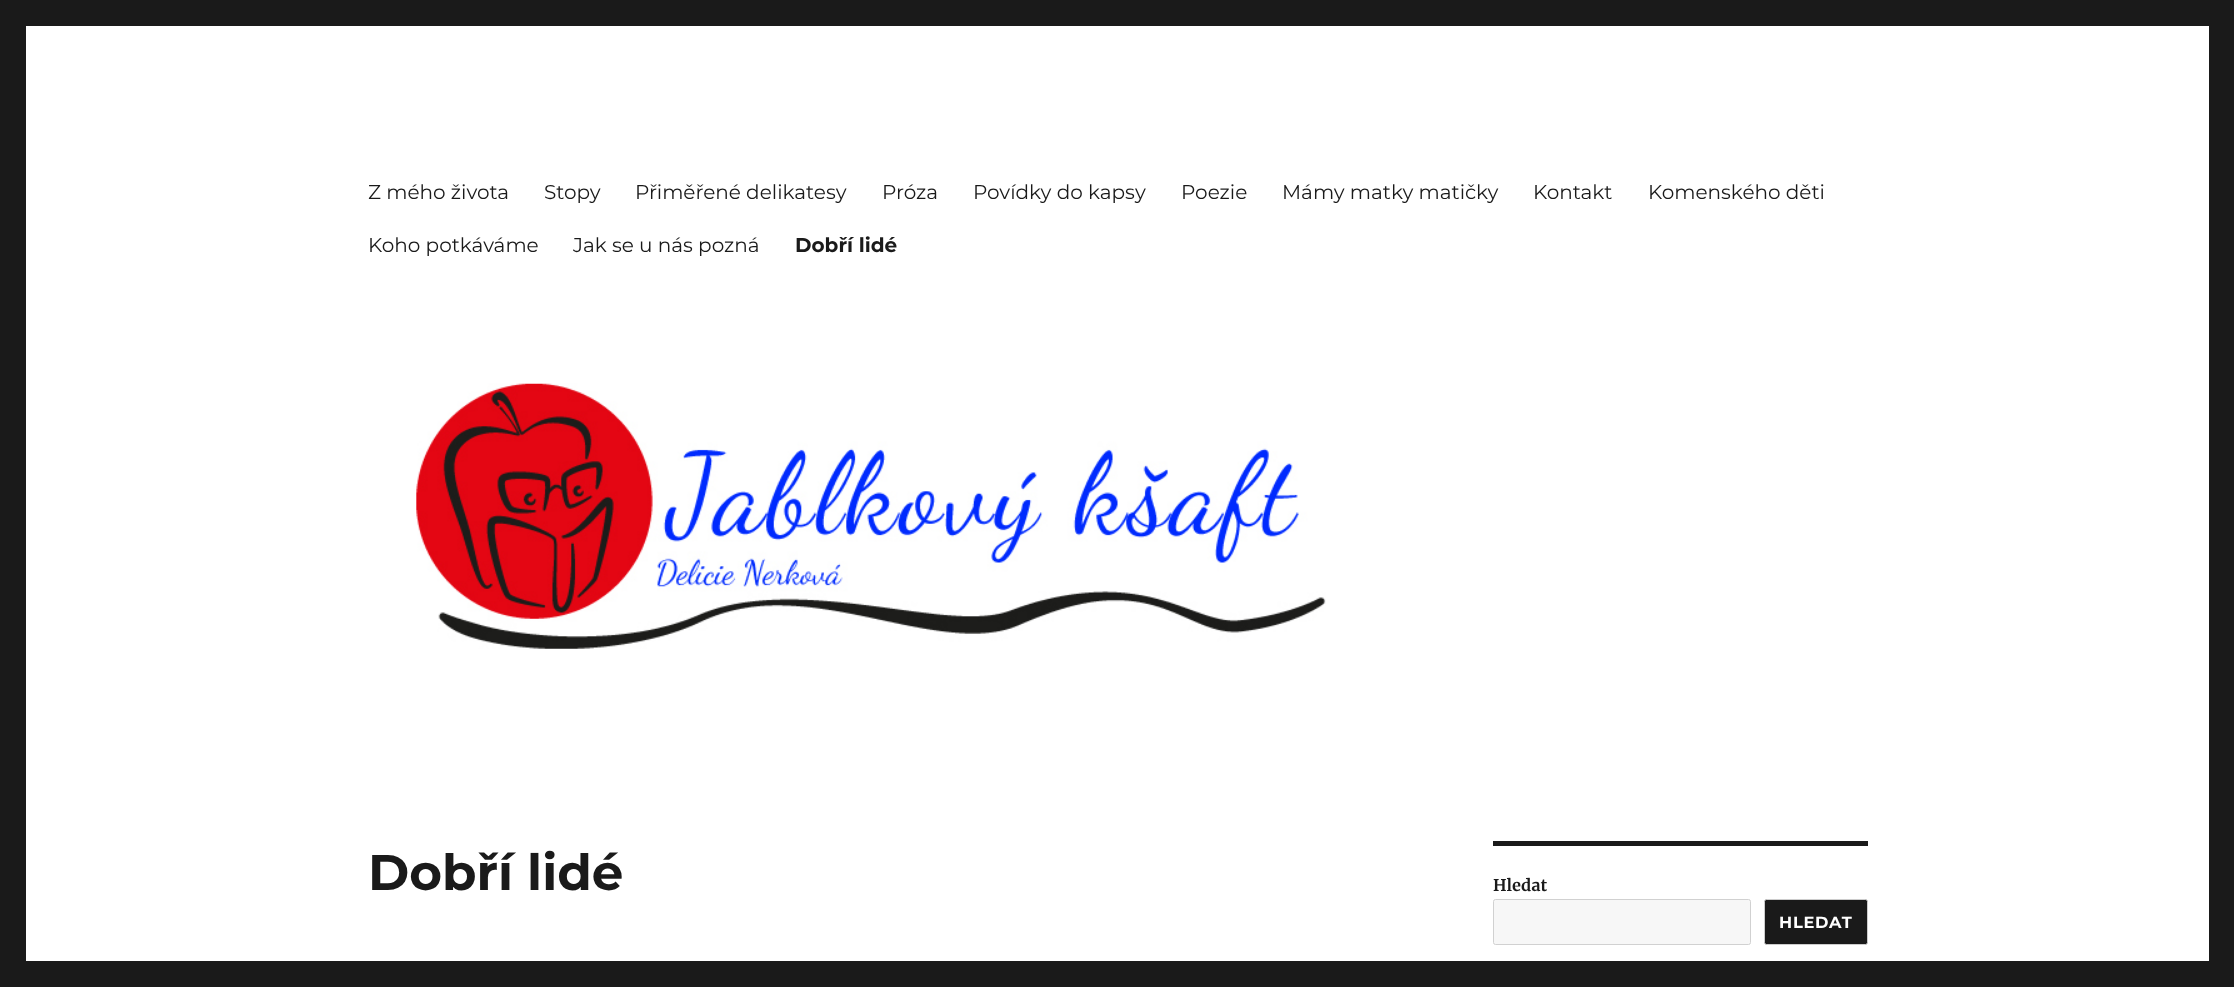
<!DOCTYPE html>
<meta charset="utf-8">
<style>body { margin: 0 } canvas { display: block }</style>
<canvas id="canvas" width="2234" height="987"></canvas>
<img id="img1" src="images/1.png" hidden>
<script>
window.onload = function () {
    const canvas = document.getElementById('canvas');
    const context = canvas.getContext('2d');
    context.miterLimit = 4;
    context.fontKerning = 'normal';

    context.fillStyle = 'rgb(26, 26, 26)';
    context.fillRect(0, 0, 2234, 987);
    context.fillStyle = 'rgb(255, 255, 255)';
    context.fillRect(26, 26, 2183, 935);
    context.drawImage(document.getElementById('img1'), 416, 383, 910, 266);
    context.fillStyle = 'rgb(26, 26, 26)';
    context.fillRect(1493, 841, 375, 5);
    context.fillStyle = 'rgb(247, 247, 247)';
    context.beginPath();
    context.roundRect(1493.5, 899.5, 257, 45, 2);
    context.fill();
    context.strokeStyle = 'rgb(209, 209, 209)';
    context.stroke();
    context.fillStyle = 'rgb(26, 26, 26)';
    context.beginPath();
    context.roundRect(1764.5, 899.5, 103, 45, 2);
    context.fill();
    context.strokeStyle = 'rgb(204, 204, 204)';
    context.stroke();
    context.font = '20px Montserrat';
    context.fillText('Z mého života', 368, 199);
    context.fillText('Stopy', 544, 199);
    context.fillText('Přiměřené delikatesy', 635, 199);
    context.fillText('Próza', 882, 199);
    context.fillText('Povídky do kapsy', 973, 199);
    context.fillText('Poezie', 1181, 199);
    context.fillText('Mámy matky matičky', 1282, 199);
    context.fillText('Kontakt', 1533, 199);
    context.fillText('Komenského děti', 1648, 199);
    context.fillText('Koho potkáváme', 368, 252);
    context.fillText('Jak se u nás pozná', 573, 252);
    context.font = 'bold 20px Montserrat';
    context.fillText('Dobří lidé', 795, 252);
    context.font = 'bold 50px Montserrat';
    context.fillText('Dobří lidé', 368, 890);
    context.font = 'bold 16.25px Merriweather';
    context.fillText('Hledat', 1493, 891);
    context.letterSpacing = '0.75px';
    context.font = 'bold 16.25px Montserrat';
    context.fillStyle = 'rgb(255, 255, 255)';
    context.fillText('HLEDAT', 1779, 928);
};
</script>
